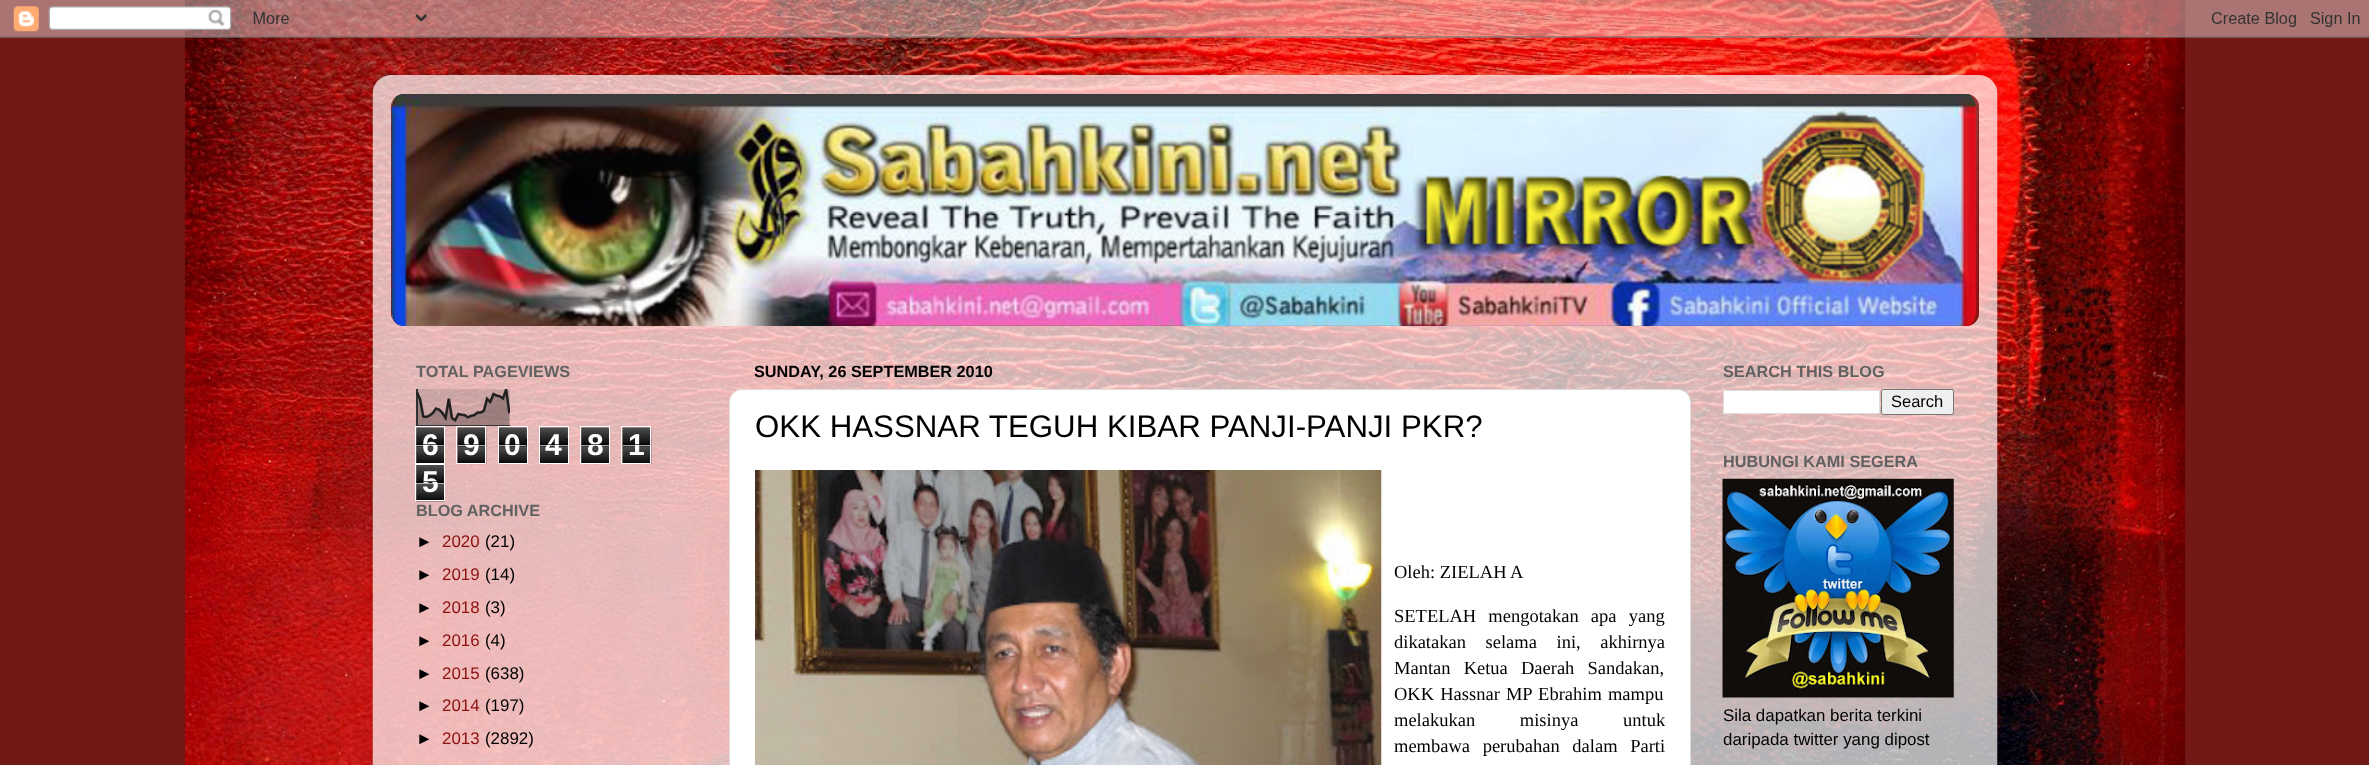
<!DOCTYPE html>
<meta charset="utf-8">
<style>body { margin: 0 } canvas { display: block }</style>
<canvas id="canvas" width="2369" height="765"></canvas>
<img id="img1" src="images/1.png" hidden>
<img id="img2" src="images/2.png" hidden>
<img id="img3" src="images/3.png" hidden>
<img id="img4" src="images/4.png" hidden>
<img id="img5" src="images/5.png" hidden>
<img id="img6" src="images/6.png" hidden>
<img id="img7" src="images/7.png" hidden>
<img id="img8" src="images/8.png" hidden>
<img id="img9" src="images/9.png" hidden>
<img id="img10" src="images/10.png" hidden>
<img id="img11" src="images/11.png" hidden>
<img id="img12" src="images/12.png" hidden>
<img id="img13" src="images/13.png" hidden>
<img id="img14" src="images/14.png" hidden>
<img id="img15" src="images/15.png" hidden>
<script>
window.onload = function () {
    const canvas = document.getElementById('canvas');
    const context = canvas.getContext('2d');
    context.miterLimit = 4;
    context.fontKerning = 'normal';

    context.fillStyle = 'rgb(114, 24, 23)';
    context.fillRect(0, 0, 2369, 765);
    context.drawImage(document.getElementById('img1'), 184, 0, 2002, 765);
    context.drawImage(document.getElementById('img2'), 0, 0, 2369, 38);
    context.save();
    context.beginPath();
    context.moveTo(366, 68);
    context.lineTo(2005, 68);
    context.lineTo(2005, 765);
    context.lineTo(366, 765);
    context.closePath();
    context.moveTo(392, 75);
    context.lineTo(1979, 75);
    context.bezierCurveTo(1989.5, 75, 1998, 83.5, 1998, 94);
    context.lineTo(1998, 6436);
    context.bezierCurveTo(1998, 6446.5, 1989.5, 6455, 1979, 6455);
    context.lineTo(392, 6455);
    context.bezierCurveTo(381.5, 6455, 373, 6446.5, 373, 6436);
    context.lineTo(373, 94);
    context.bezierCurveTo(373, 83.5, 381.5, 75, 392, 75);
    context.closePath();
    context.clip('evenodd');
    context.fillStyle = 'rgba(0, 0, 0, 0.15)';
    context.filter = 'blur(2px)';
    context.beginPath();
    context.roundRect(373, 75, 1625, 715, 19);
    context.fill();
    context.filter = 'none';
    context.restore();
    context.drawImage(document.getElementById('img3'), 372, 75, 1626, 690);
    context.fillStyle = 'rgb(140, 17, 15)';
    context.beginPath();
    context.roundRect(391, 94, 1588, 232, 13);
    context.fill();
    context.drawImage(document.getElementById('img4'), 391, 94, 1588, 91);
    context.drawImage(document.getElementById('img5'), 391, 94, 1588, 232);
    context.drawImage(document.getElementById('img6'), 416, 389, 94, 37);
    context.drawImage(document.getElementById('img7'), 416, 427, 28, 36);
    context.strokeStyle = 'rgb(255, 255, 255)';
    context.strokeRect(415.5, 426.5, 29, 37);
    context.drawImage(document.getElementById('img8'), 457, 427, 30, 37);
    context.strokeRect(456.5, 426.5, 29, 37);
    context.drawImage(document.getElementById('img9'), 499, 427, 28, 36);
    context.strokeRect(498.5, 426.5, 29, 37);
    context.drawImage(document.getElementById('img10'), 540, 427, 28, 36);
    context.strokeRect(539.5, 426.5, 29, 37);
    context.drawImage(document.getElementById('img11'), 581, 427, 28, 36);
    context.strokeRect(580.5, 426.5, 29, 37);
    context.drawImage(document.getElementById('img12'), 622, 427, 30, 37);
    context.strokeRect(621.5, 426.5, 29, 37);
    context.drawImage(document.getElementById('img13'), 416, 465, 29, 37);
    context.strokeRect(415.5, 464.5, 29, 36);
    context.fillStyle = 'rgb(255, 255, 255)';
    context.beginPath();
    context.roundRect(729.5, 389.5, 961, 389, 12.5);
    context.fill();
    context.strokeStyle = 'rgb(220, 220, 220)';
    context.stroke();
    context.drawImage(document.getElementById('img14'), 755, 470, 627, 295);
    context.beginPath();
    context.rect(1723.5, 390.5, 156, 23);
    context.fill();
    context.strokeStyle = 'rgb(221, 221, 221)';
    context.stroke();
    context.fillStyle = 'rgb(239, 239, 239)';
    context.beginPath();
    context.roundRect(1881.5, 389.5, 72, 25, 2);
    context.fill();
    context.strokeStyle = 'rgb(118, 118, 118)';
    context.stroke();
    context.drawImage(document.getElementById('img15'), 1722, 478, 232, 220);
    context.font = 'bold 16.25px Liberation Sans';
    context.fillStyle = 'rgb(97, 97, 97)';
    context.fillText('TOTAL PAGEVIEWS', 416, 377);
    context.font = 'bold 30px Liberation Sans';
    context.fillStyle = 'rgb(255, 255, 255)';
    context.fillText('6', 422, 455);
    context.fillStyle = 'rgba(0, 0, 0, 0.65)';
    context.fillRect(416, 444, 28, 1);
    context.fillStyle = 'rgba(255, 255, 255, 0.65)';
    context.fillRect(416, 445, 28, 1);
    context.fillStyle = 'rgb(255, 255, 255)';
    context.fillText('9', 463, 455);
    context.fillStyle = 'rgba(0, 0, 0, 0.65)';
    context.fillRect(458, 444, 27, 1);
    context.fillStyle = 'rgba(255, 255, 255, 0.65)';
    context.fillRect(458, 445, 27, 1);
    context.fillStyle = 'rgb(255, 255, 255)';
    context.fillText('0', 504, 455);
    context.fillStyle = 'rgba(0, 0, 0, 0.65)';
    context.fillRect(499, 444, 27, 1);
    context.fillStyle = 'rgba(255, 255, 255, 0.65)';
    context.fillRect(499, 445, 27, 1);
    context.fillStyle = 'rgb(255, 255, 255)';
    context.fillText('4', 545, 455);
    context.fillStyle = 'rgba(0, 0, 0, 0.65)';
    context.fillRect(540, 444, 28, 1);
    context.fillStyle = 'rgba(255, 255, 255, 0.65)';
    context.fillRect(540, 445, 28, 1);
    context.fillStyle = 'rgb(255, 255, 255)';
    context.fillText('8', 587, 455);
    context.fillStyle = 'rgba(0, 0, 0, 0.65)';
    context.fillRect(581, 444, 28, 1);
    context.fillStyle = 'rgba(255, 255, 255, 0.65)';
    context.fillRect(581, 445, 28, 1);
    context.fillStyle = 'rgb(255, 255, 255)';
    context.fillText('1', 628, 455);
    context.fillStyle = 'rgba(0, 0, 0, 0.65)';
    context.fillRect(623, 444, 27, 1);
    context.fillStyle = 'rgba(255, 255, 255, 0.65)';
    context.fillRect(623, 445, 27, 1);
    context.fillStyle = 'rgb(255, 255, 255)';
    context.fillText('5', 422, 492);
    context.fillStyle = 'rgba(0, 0, 0, 0.65)';
    context.fillRect(416, 481, 28, 1);
    context.fillStyle = 'rgba(255, 255, 255, 0.65)';
    context.fillRect(416, 483, 28, 1);
    context.font = 'bold 16.25px Liberation Sans';
    context.fillStyle = 'rgb(97, 97, 97)';
    context.fillText('BLOG ARCHIVE', 416, 516);
    context.font = '16.9px Liberation Sans';
    context.fillStyle = 'rgb(0, 0, 0)';
    context.fillText('►', 416, 547);
    context.fillStyle = 'rgb(140, 17, 15)';
    context.fillText('2020', 442, 547);
    context.fillStyle = 'rgb(0, 0, 0)';
    context.fillText('(21)', 485, 547);
    context.fillText('►', 416, 580);
    context.fillStyle = 'rgb(140, 17, 15)';
    context.fillText('2019', 442, 580);
    context.fillStyle = 'rgb(0, 0, 0)';
    context.fillText('(14)', 485, 580);
    context.fillText('►', 416, 613);
    context.fillStyle = 'rgb(140, 17, 15)';
    context.fillText('2018', 442, 613);
    context.fillStyle = 'rgb(0, 0, 0)';
    context.fillText('(3)', 485, 613);
    context.fillText('►', 416, 646);
    context.fillStyle = 'rgb(140, 17, 15)';
    context.fillText('2016', 442, 646);
    context.fillStyle = 'rgb(0, 0, 0)';
    context.fillText('(4)', 485, 646);
    context.fillText('►', 416, 679);
    context.fillStyle = 'rgb(140, 17, 15)';
    context.fillText('2015', 442, 679);
    context.fillStyle = 'rgb(0, 0, 0)';
    context.fillText('(638)', 485, 679);
    context.fillText('►', 416, 711);
    context.fillStyle = 'rgb(140, 17, 15)';
    context.fillText('2014', 442, 711);
    context.fillStyle = 'rgb(0, 0, 0)';
    context.fillText('(197)', 485, 711);
    context.fillText('►', 416, 744);
    context.fillStyle = 'rgb(140, 17, 15)';
    context.fillText('2013', 442, 744);
    context.fillStyle = 'rgb(0, 0, 0)';
    context.fillText('(2892)', 485, 744);
    context.font = 'bold 16.25px Liberation Sans';
    context.fillText('SUNDAY, 26 SEPTEMBER 2010', 754, 377);
    context.font = '31.25px Liberation Sans';
    context.fillText('OKK HASSNAR TEGUH KIBAR PANJI-PANJI PKR?', 755, 437);
    context.font = '18.5px Liberation Serif';
    context.fillText('Oleh: ZIELAH A', 1394, 578);
    context.wordSpacing = '7.5px';
    context.fillText('SETELAH mengotakan apa yang', 1394, 622);
    context.wordSpacing = '15px';
    context.fillText('dikatakan selama ini, akhirnya', 1394, 648);
    context.wordSpacing = '8.5px';
    context.fillText('Mantan Ketua Daerah Sandakan,', 1394, 674);
    context.wordSpacing = '1.5px';
    context.fillText('OKK Hassnar MP Ebrahim mampu', 1394, 700);
    context.wordSpacing = '40px';
    context.fillText('melakukan misinya untuk', 1394, 726);
    context.wordSpacing = '8px';
    context.fillText('membawa perubahan dalam Parti', 1394, 752);
    context.wordSpacing = '0px';
    context.font = 'bold 16.25px Liberation Sans';
    context.fillStyle = 'rgb(97, 97, 97)';
    context.fillText('SEARCH THIS BLOG', 1723, 377);
    context.font = '16.5px Liberation Sans';
    context.fillStyle = 'rgb(0, 0, 0)';
    context.fillText('Search', 1891, 407);
    context.font = 'bold 16.25px Liberation Sans';
    context.fillStyle = 'rgb(97, 97, 97)';
    context.fillText('HUBUNGI KAMI SEGERA', 1723, 467);
    context.font = '16.9px Liberation Sans';
    context.fillStyle = 'rgb(0, 0, 0)';
    context.fillText('Sila dapatkan berita terkini', 1723, 721);
    context.fillText('daripada twitter yang dipost', 1723, 745);
};
</script>
